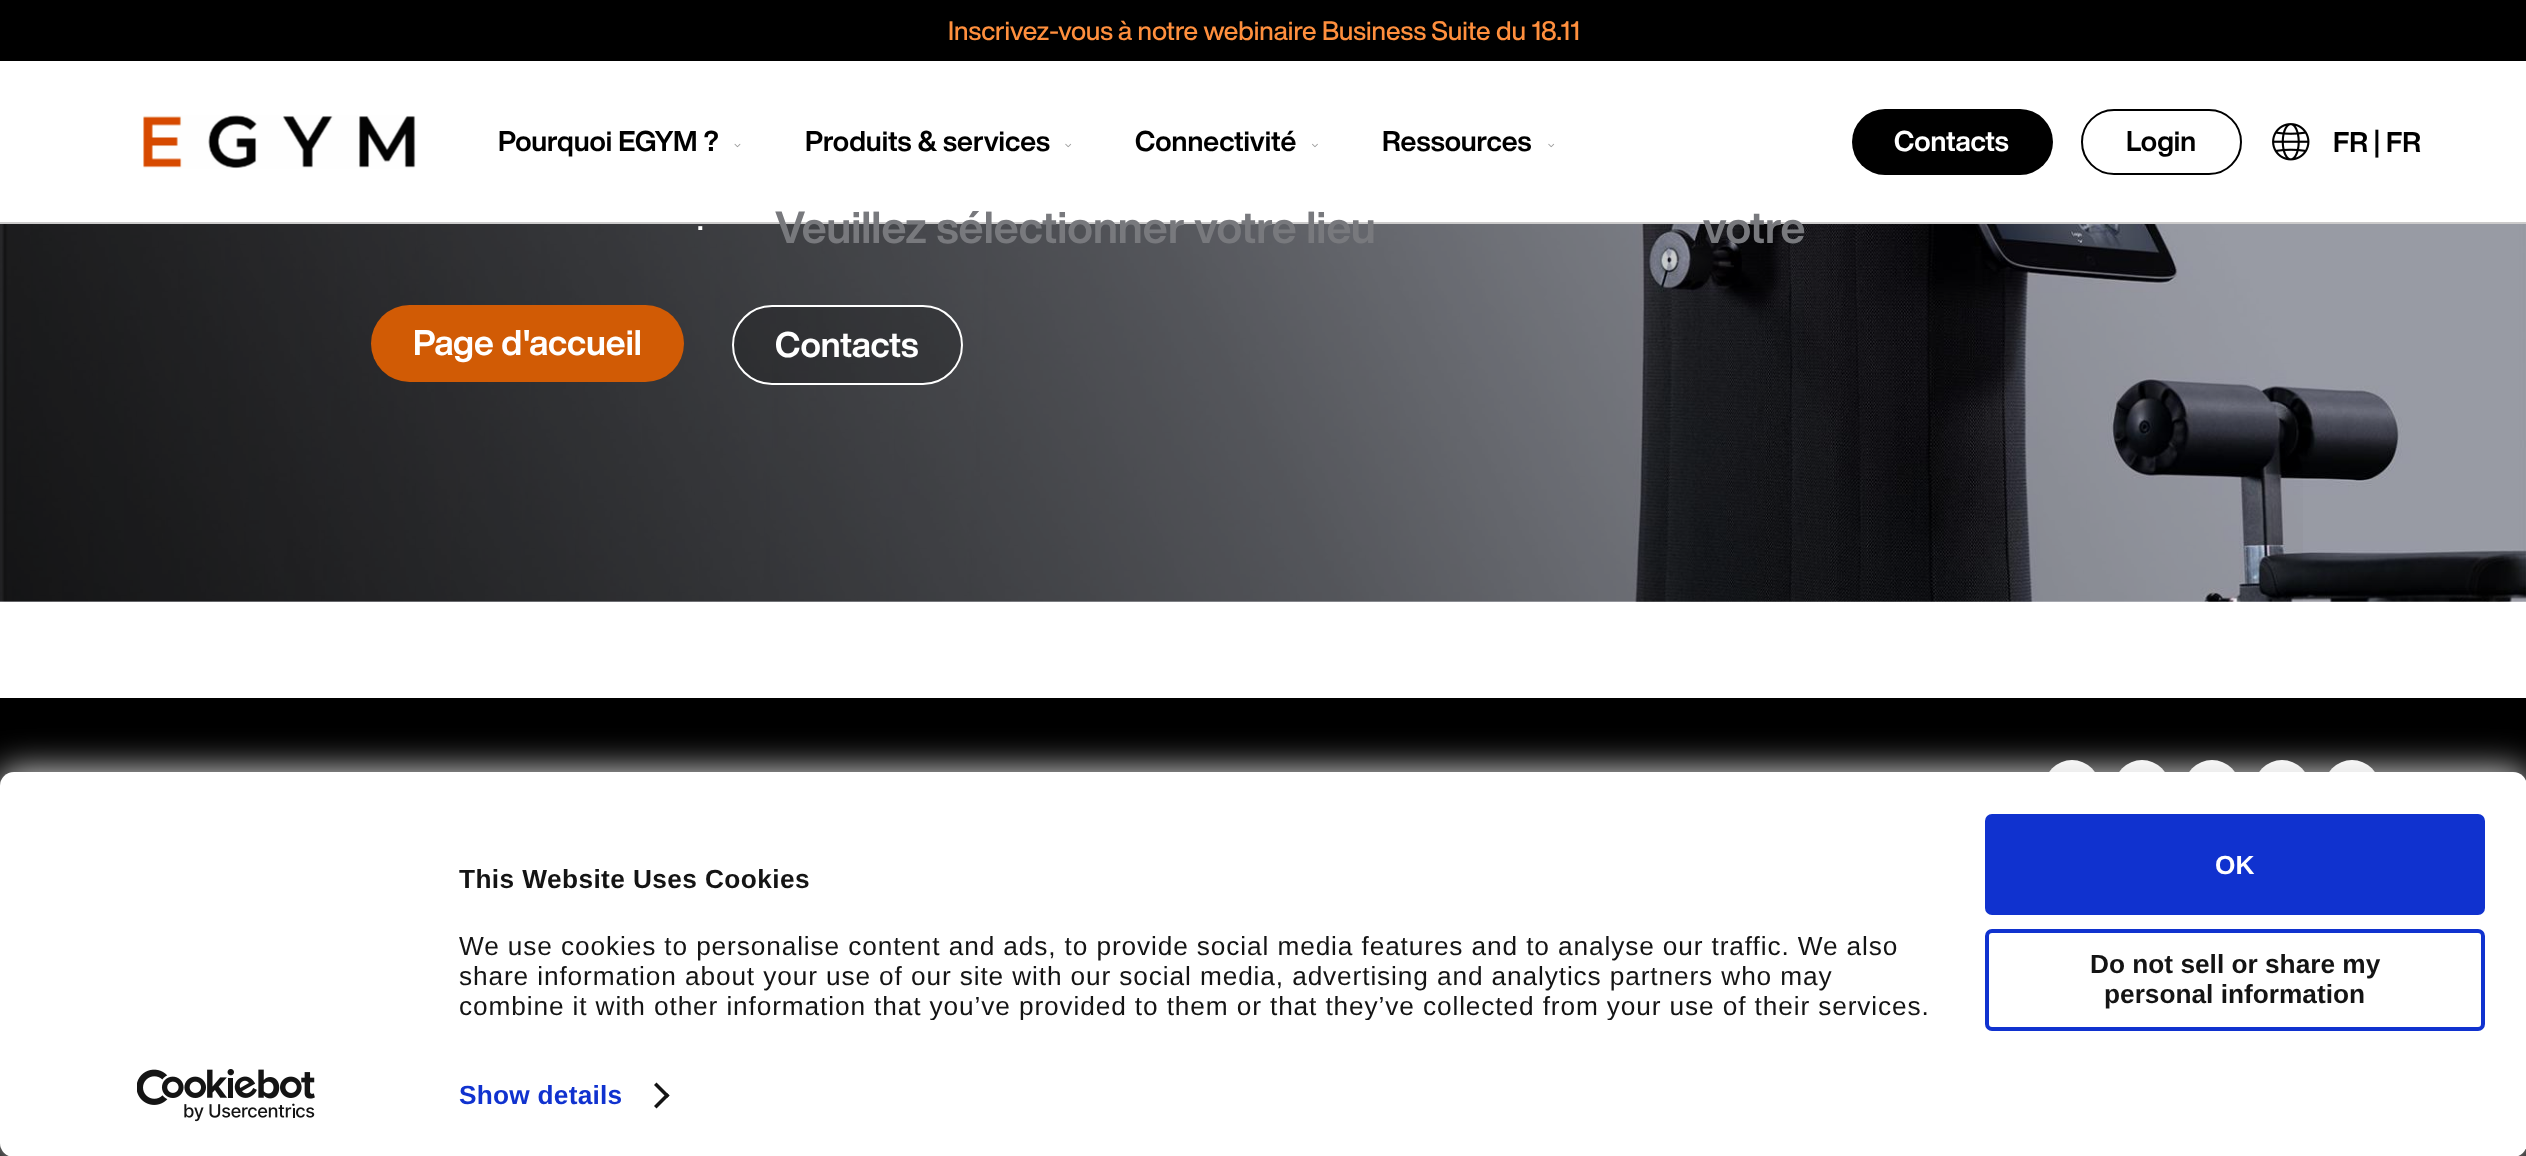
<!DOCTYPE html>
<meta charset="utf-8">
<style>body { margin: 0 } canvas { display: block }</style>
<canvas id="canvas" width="2526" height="1156"></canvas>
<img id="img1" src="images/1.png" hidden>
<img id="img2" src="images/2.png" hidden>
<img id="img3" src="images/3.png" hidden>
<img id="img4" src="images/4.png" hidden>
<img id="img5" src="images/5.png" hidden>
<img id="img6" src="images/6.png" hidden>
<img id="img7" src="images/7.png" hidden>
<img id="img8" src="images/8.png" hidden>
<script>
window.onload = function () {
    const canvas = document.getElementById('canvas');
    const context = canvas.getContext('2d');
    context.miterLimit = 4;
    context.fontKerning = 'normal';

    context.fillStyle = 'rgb(255, 255, 255)';
    context.fillRect(0, 0, 2526, 1156);
    context.fillStyle = 'rgb(204, 203, 203)';
    context.fillRect(0, 222, 2526, 2);
    context.fillStyle = 'rgb(0, 0, 0)';
    context.fillRect(0, 0, 2526, 61);
    context.drawImage(document.getElementById('img1'), 143, 115, 273, 54);
    context.drawImage(document.getElementById('img2'), 734, 143, 7, 5);
    context.drawImage(document.getElementById('img3'), 1065, 143, 7, 5);
    context.drawImage(document.getElementById('img4'), 1312, 143, 6, 5);
    context.drawImage(document.getElementById('img3'), 1548, 143, 7, 5);
    context.beginPath();
    context.roundRect(1852, 109, 201, 66, 33);
    context.fill();
    context.beginPath();
    context.roundRect(2082, 110, 159, 64, 32);
    context.strokeStyle = 'rgb(0, 0, 0)';
    context.lineWidth = 2;
    context.stroke();
    context.drawImage(document.getElementById('img5'), 2272, 123, 38, 38);
    context.drawImage(document.getElementById('img6'), 0, 224, 2526, 378);
    context.drawImage(document.getElementById('img7'), 0, 224, 2303, 378);
    context.fillStyle = 'rgb(209, 91, 5)';
    context.beginPath();
    context.roundRect(371, 305, 313, 77, 38.5);
    context.fill();
    context.fillStyle = 'rgba(0, 0, 0, 0.2)';
    context.beginPath();
    context.roundRect(733, 306, 229, 78, 39);
    context.fill();
    context.strokeStyle = 'rgb(255, 255, 255)';
    context.stroke();
    context.fillStyle = 'rgb(0, 0, 0)';
    context.fillRect(0, 698, 2526, 458);
    context.fillStyle = 'rgb(255, 255, 255)';
    context.beginPath();
    context.arc(2072, 788, 28, 0, 2 * Math.PI);
    context.fill();
    context.beginPath();
    context.arc(2142, 788, 28, 0, 2 * Math.PI);
    context.fill();
    context.beginPath();
    context.arc(2212, 788, 28, 0, 2 * Math.PI);
    context.fill();
    context.beginPath();
    context.arc(2282, 788, 28, 0, 2 * Math.PI);
    context.fill();
    context.beginPath();
    context.arc(2352, 788, 28, 0, 2 * Math.PI);
    context.fill();
    context.fillStyle = 'rgb(222, 222, 222)';
    context.filter = 'blur(17.5px)';
    context.beginPath();
    context.roundRect(-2, 770, 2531, 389, 16);
    context.fill();
    context.filter = 'none';
    context.fillStyle = 'rgb(255, 255, 255)';
    context.beginPath();
    context.roundRect(0, 772, 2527, 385, 14);
    context.fill();
    context.drawImage(document.getElementById('img8'), 137, 1069, 178, 53);
    context.fillStyle = 'rgb(20, 20, 20)';
    context.beginPath();
    context.moveTo(656.5, 1082.5);
    context.lineTo(669.5, 1095.5);
    context.lineTo(667, 1098);
    context.lineTo(654, 1085);
    context.closePath();
    context.fill();
    context.beginPath();
    context.moveTo(667, 1093);
    context.lineTo(669.5, 1095.5);
    context.lineTo(656.5, 1108.5);
    context.lineTo(654, 1106);
    context.closePath();
    context.fill();
    context.fillStyle = 'rgb(16, 50, 207)';
    context.beginPath();
    context.roundRect(1987, 816, 496, 97, 5);
    context.fill();
    context.strokeStyle = 'rgb(16, 50, 207)';
    context.lineWidth = 4;
    context.stroke();
    context.beginPath();
    context.roundRect(1987, 931, 496, 98, 5);
    context.stroke();
    context.font = '500 26.25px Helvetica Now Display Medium';
    context.fillStyle = 'rgb(255, 143, 61)';
    context.fillText('Inscrivez-vous à notre webinaire Business Suite du 18.11', 948, 40);
    context.font = 'bold 28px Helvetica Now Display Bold';
    context.fillStyle = 'rgb(0, 0, 0)';
    context.fillText('Pourquoi EGYM ?', 498, 151);
    context.fillText('Produits & services', 805, 151);
    context.fillText('Connectivité', 1135, 151);
    context.fillText('Ressources', 1382, 151);
    context.fillStyle = 'rgb(255, 255, 255)';
    context.fillText('Contacts', 1894, 151);
    context.fillStyle = 'rgb(0, 0, 0)';
    context.fillText('Login', 2126, 151);
    context.fillText('FR | FR', 2333, 152);
    context.font = '500 32px Helvetica Now Display Medium';
    context.fillStyle = 'rgb(255, 255, 255)';
    context.fillText('.', 697, 230);
    context.font = 'bold 35px Helvetica Now Display Bold';
    context.fillText('Page d\'accueil', 413, 355);
    context.fillText('Contacts', 775, 357);
    context.font = 'bold 44.1px Helvetica Now Display Bold';
    context.fillStyle = 'rgb(120, 121, 125)';
    context.fillText('Veuillez sélectionner votre lieu', 775, 243);
    context.fillText('votre', 1703, 243);
    context.letterSpacing = '0.4px';
    context.font = 'bold 26.25px Liberation Sans';
    context.fillStyle = 'rgb(20, 20, 20)';
    context.fillText('This Website Uses Cookies', 459, 888);
    context.letterSpacing = '0.88px';
    context.font = '26.25px Liberation Sans';
    context.fillText('We use cookies to personalise content and ads, to provide social media features and to analyse our traffic. We also', 459, 955);
    context.fillText('share information about your use of our site with our social media, advertising and analytics partners who may', 459, 985);
    context.save();
    context.beginPath();
    context.rect(459, 824, 1515, 196);
    context.clip();
    context.fillText('combine it with other information that you’ve provided to them or that they’ve collected from your use of their services.', 459, 1015);
    context.restore();
    context.letterSpacing = '0.25px';
    context.font = 'bold 26.25px Liberation Sans';
    context.fillStyle = 'rgb(16, 50, 207)';
    context.fillText('Show details', 459, 1104);
    context.letterSpacing = '0px';
    context.fillStyle = 'rgb(255, 255, 255)';
    context.fillText('OK', 2215, 874);
    context.fillStyle = 'rgb(20, 20, 20)';
    context.fillText('Do not sell or share my', 2090, 973);
    context.fillText('personal information', 2104, 1003);
};
</script>
